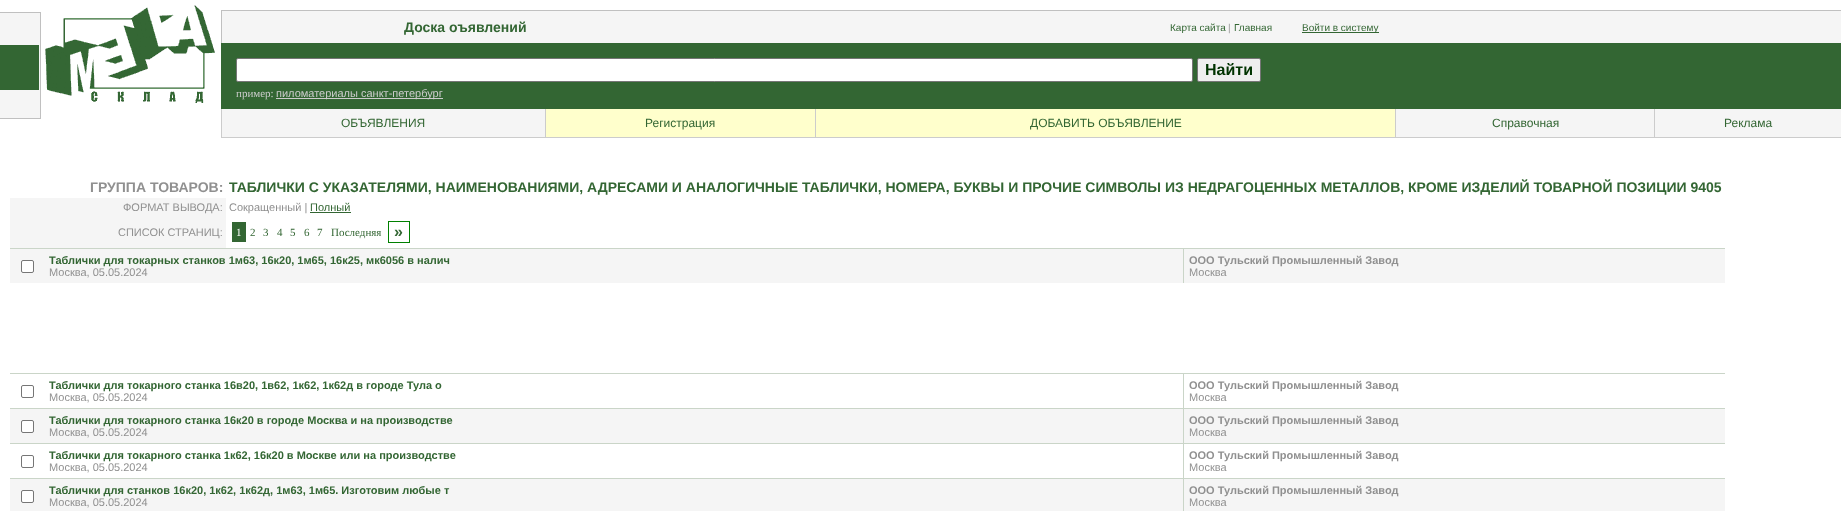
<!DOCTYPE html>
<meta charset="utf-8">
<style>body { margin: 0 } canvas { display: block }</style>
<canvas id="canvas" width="1841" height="511"></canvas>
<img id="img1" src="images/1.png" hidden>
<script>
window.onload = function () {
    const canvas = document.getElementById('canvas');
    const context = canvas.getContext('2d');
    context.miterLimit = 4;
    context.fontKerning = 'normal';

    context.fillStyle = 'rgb(255, 255, 255)';
    context.fillRect(0, 0, 1841, 511);
    context.drawImage(document.getElementById('img1'), 0, 5, 215, 114);
    context.fillStyle = 'rgb(192, 192, 192)';
    context.fillRect(221, 10, 1620, 1);
    context.fillRect(221, 10, 1, 33);
    context.fillStyle = 'rgb(245, 245, 245)';
    context.fillRect(222, 11, 1619, 32);
    context.fillStyle = 'rgb(51, 102, 51)';
    context.fillRect(1302, 32, 77, 1);
    context.fillRect(221, 43, 1620, 66);
    context.fillStyle = 'rgb(255, 255, 255)';
    context.beginPath();
    context.roundRect(236.5, 58.5, 956, 23, 1.5);
    context.fill();
    context.strokeStyle = 'rgb(118, 118, 118)';
    context.stroke();
    context.fillStyle = 'rgb(239, 239, 239)';
    context.beginPath();
    context.roundRect(1197.5, 58.5, 63, 23, 1.5);
    context.fill();
    context.stroke();
    context.fillStyle = 'rgb(204, 204, 204)';
    context.fillRect(276, 98, 167, 1);
    context.fillStyle = 'rgb(245, 245, 245)';
    context.fillRect(222, 109, 323, 28);
    context.fillStyle = 'rgb(204, 204, 204)';
    context.fillRect(221, 137, 1620, 1);
    context.fillRect(221, 109, 1, 29);
    context.fillStyle = 'rgb(255, 255, 204)';
    context.fillRect(546, 109, 269, 28);
    context.fillStyle = 'rgb(204, 204, 204)';
    context.fillRect(545, 109, 1, 29);
    context.fillStyle = 'rgb(255, 255, 204)';
    context.fillRect(816, 109, 579, 28);
    context.fillStyle = 'rgb(204, 204, 204)';
    context.fillRect(815, 109, 1, 29);
    context.fillStyle = 'rgb(245, 245, 245)';
    context.fillRect(1396, 109, 258, 28);
    context.fillStyle = 'rgb(204, 204, 204)';
    context.fillRect(1395, 109, 1, 29);
    context.fillStyle = 'rgb(245, 245, 245)';
    context.fillRect(1655, 109, 186, 28);
    context.fillStyle = 'rgb(204, 204, 204)';
    context.fillRect(1654, 109, 1, 29);
    context.fillStyle = 'rgb(245, 245, 245)';
    context.fillRect(10, 198, 216, 50);
    context.fillStyle = 'rgb(51, 102, 51)';
    context.fillRect(310, 212, 41, 1);
    context.fillRect(232, 222, 14, 20);
    context.strokeStyle = 'rgb(0, 128, 0)';
    context.strokeRect(388.5, 221.5, 21, 21);
    context.fillStyle = 'rgb(245, 245, 245)';
    context.fillRect(10, 249, 1715, 34);
    context.fillStyle = 'rgb(202, 213, 200)';
    context.fillRect(10, 248, 1715, 1);
    context.fillStyle = 'rgb(255, 255, 255)';
    context.beginPath();
    context.roundRect(21.5, 260.5, 12, 12, 1.5);
    context.fill();
    context.strokeStyle = 'rgb(118, 118, 118)';
    context.stroke();
    context.fillStyle = 'rgb(202, 213, 200)';
    context.fillRect(1183, 248, 1, 35);
    context.fillRect(10, 373, 1715, 1);
    context.beginPath();
    context.roundRect(21.5, 385.5, 12, 12, 1.5);
    context.stroke();
    context.fillRect(1183, 373, 1, 35);
    context.fillStyle = 'rgb(245, 245, 245)';
    context.fillRect(10, 409, 1715, 34);
    context.fillStyle = 'rgb(202, 213, 200)';
    context.fillRect(10, 408, 1715, 1);
    context.fillStyle = 'rgb(255, 255, 255)';
    context.beginPath();
    context.roundRect(21.5, 420.5, 12, 12, 1.5);
    context.fill();
    context.stroke();
    context.fillStyle = 'rgb(202, 213, 200)';
    context.fillRect(1183, 408, 1, 35);
    context.fillRect(10, 443, 1715, 1);
    context.beginPath();
    context.roundRect(21.5, 455.5, 12, 12, 1.5);
    context.stroke();
    context.fillRect(1183, 443, 1, 35);
    context.fillStyle = 'rgb(245, 245, 245)';
    context.fillRect(10, 479, 1715, 32);
    context.fillStyle = 'rgb(202, 213, 200)';
    context.fillRect(10, 478, 1715, 1);
    context.fillStyle = 'rgb(255, 255, 255)';
    context.beginPath();
    context.roundRect(21.5, 490.5, 12, 12, 1.5);
    context.fill();
    context.stroke();
    context.fillStyle = 'rgb(202, 213, 200)';
    context.fillRect(1183, 478, 1, 33);
    context.font = 'bold 14px Liberation Sans';
    context.fillStyle = 'rgb(51, 102, 51)';
    context.fillText('Доска оъявлений', 404, 32);
    context.font = '10px Liberation Sans';
    context.fillText('Карта сайта', 1170, 31);
    context.fillStyle = 'rgb(154, 154, 154)';
    context.fillText('|', 1228, 31);
    context.fillStyle = 'rgb(51, 102, 51)';
    context.fillText('Главная', 1234, 31);
    context.fillText('Войти в систему', 1302, 31);
    context.font = 'bold 16px Liberation Sans';
    context.fillStyle = 'rgb(0, 51, 0)';
    context.fillText('Найти', 1205, 75);
    context.font = '11px Liberation Serif';
    context.fillStyle = 'rgb(204, 204, 204)';
    context.fillText('пример:', 236, 97);
    context.font = '11px Liberation Sans';
    context.fillText('пиломатериалы санкт-петербург', 276, 97);
    context.font = '12px Liberation Sans';
    context.fillStyle = 'rgb(51, 102, 51)';
    context.fillText('ОБЪЯВЛЕНИЯ', 341, 127);
    context.fillText('Регистрация', 645, 127);
    context.fillText('ДОБАВИТЬ ОБЪЯВЛЕНИЕ', 1030, 127);
    context.fillText('Справочная', 1492, 127);
    context.fillText('Реклама', 1724, 127);
    context.font = 'bold 14px Liberation Sans';
    context.fillStyle = 'rgb(144, 144, 144)';
    context.fillText('ГРУППА ТОВАРОВ:', 90, 192);
    context.fillStyle = 'rgb(51, 102, 51)';
    context.fillText('ТАБЛИЧКИ С УКАЗАТЕЛЯМИ, НАИМЕНОВАНИЯМИ, АДРЕСАМИ И АНАЛОГИЧНЫЕ ТАБЛИЧКИ, НОМЕРА, БУКВЫ И ПРОЧИЕ СИМВОЛЫ ИЗ НЕДРАГОЦЕННЫХ МЕТАЛЛОВ, КРОМЕ ИЗДЕЛИЙ ТОВАРНОЙ ПОЗИЦИИ 9405', 229, 192);
    context.font = '11px Liberation Sans';
    context.fillStyle = 'rgb(144, 144, 144)';
    context.fillText('ФОРМАТ ВЫВОДА:', 123, 211);
    context.fillText('Сокращенный |', 229, 211);
    context.fillStyle = 'rgb(51, 102, 51)';
    context.fillText('Полный', 310, 211);
    context.fillStyle = 'rgb(144, 144, 144)';
    context.fillText('СПИСОК СТРАНИЦ:', 118, 236);
    context.font = '11px Liberation Serif';
    context.fillStyle = 'rgb(255, 255, 255)';
    context.fillText('1', 236, 236);
    context.fillStyle = 'rgb(51, 102, 51)';
    context.fillText('2', 250, 236);
    context.fillText('3', 263, 236);
    context.fillText('4', 277, 236);
    context.fillText('5', 290, 236);
    context.fillText('6', 304, 236);
    context.fillText('7', 317, 236);
    context.fillText('Последняя', 331, 236);
    context.font = 'bold 16px Liberation Sans';
    context.fillText('»', 394, 237);
    context.font = 'bold 11px Liberation Sans';
    context.fillText('Таблички для токарных станков 1м63, 16к20, 1м65, 16к25, мк6056 в налич', 49, 264);
    context.font = '11px Liberation Sans';
    context.fillStyle = 'rgb(144, 144, 144)';
    context.fillText('Москва, 05.05.2024', 49, 276);
    context.font = 'bold 11px Liberation Sans';
    context.fillText('ООО Тульский Промышленный Завод', 1189, 264);
    context.font = '11px Liberation Sans';
    context.fillText('Москва', 1189, 276);
    context.font = 'bold 11px Liberation Sans';
    context.fillStyle = 'rgb(51, 102, 51)';
    context.fillText('Таблички для токарного станка 16в20, 1в62, 1к62, 1к62д в городе Тула о', 49, 389);
    context.font = '11px Liberation Sans';
    context.fillStyle = 'rgb(144, 144, 144)';
    context.fillText('Москва, 05.05.2024', 49, 401);
    context.font = 'bold 11px Liberation Sans';
    context.fillText('ООО Тульский Промышленный Завод', 1189, 389);
    context.font = '11px Liberation Sans';
    context.fillText('Москва', 1189, 401);
    context.font = 'bold 11px Liberation Sans';
    context.fillStyle = 'rgb(51, 102, 51)';
    context.fillText('Таблички для токарного станка 16к20 в городе Москва и на производстве', 49, 424);
    context.font = '11px Liberation Sans';
    context.fillStyle = 'rgb(144, 144, 144)';
    context.fillText('Москва, 05.05.2024', 49, 436);
    context.font = 'bold 11px Liberation Sans';
    context.fillText('ООО Тульский Промышленный Завод', 1189, 424);
    context.font = '11px Liberation Sans';
    context.fillText('Москва', 1189, 436);
    context.font = 'bold 11px Liberation Sans';
    context.fillStyle = 'rgb(51, 102, 51)';
    context.fillText('Таблички для токарного станка 1к62, 16к20 в Москве или на производстве', 49, 459);
    context.font = '11px Liberation Sans';
    context.fillStyle = 'rgb(144, 144, 144)';
    context.fillText('Москва, 05.05.2024', 49, 471);
    context.font = 'bold 11px Liberation Sans';
    context.fillText('ООО Тульский Промышленный Завод', 1189, 459);
    context.font = '11px Liberation Sans';
    context.fillText('Москва', 1189, 471);
    context.font = 'bold 11px Liberation Sans';
    context.fillStyle = 'rgb(51, 102, 51)';
    context.fillText('Таблички для станков 16к20, 1к62, 1к62д, 1м63, 1м65. Изготовим любые т', 49, 494);
    context.font = '11px Liberation Sans';
    context.fillStyle = 'rgb(144, 144, 144)';
    context.fillText('Москва, 05.05.2024', 49, 506);
    context.font = 'bold 11px Liberation Sans';
    context.fillText('ООО Тульский Промышленный Завод', 1189, 494);
    context.font = '11px Liberation Sans';
    context.fillText('Москва', 1189, 506);
};
</script>
